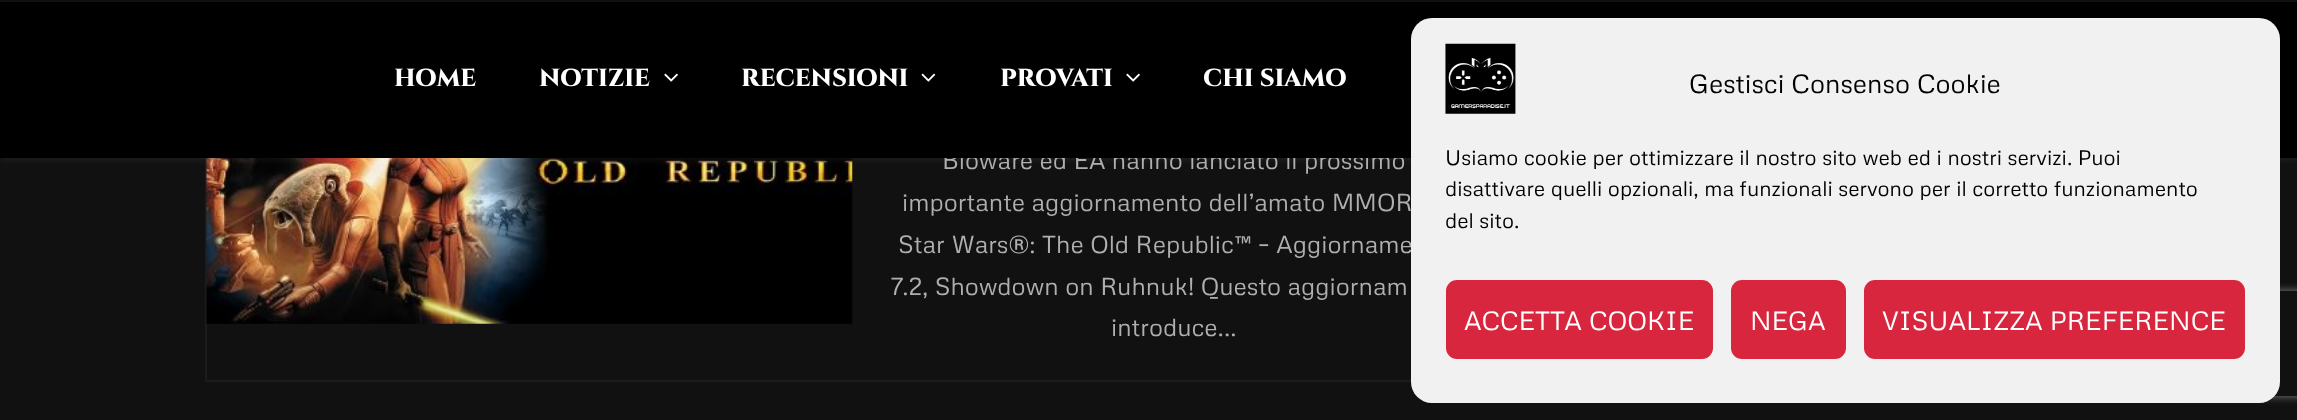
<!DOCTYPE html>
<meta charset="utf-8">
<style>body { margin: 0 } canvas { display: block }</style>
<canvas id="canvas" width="2297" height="420"></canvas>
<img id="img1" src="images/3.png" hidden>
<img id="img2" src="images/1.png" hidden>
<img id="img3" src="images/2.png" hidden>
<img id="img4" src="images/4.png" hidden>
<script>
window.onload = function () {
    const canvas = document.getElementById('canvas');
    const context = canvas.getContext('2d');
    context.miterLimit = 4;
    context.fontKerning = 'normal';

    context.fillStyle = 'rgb(17, 17, 17)';
    context.fillRect(0, 0, 2297, 420);
    context.strokeStyle = 'rgb(28, 28, 28)';
    context.lineWidth = 2;
    context.strokeRect(206, -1, 1293, 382);
    context.drawImage(document.getElementById('img1'), 206, 158, 647, 166);
    context.fillStyle = 'rgba(255, 255, 255, 0.08)';
    context.filter = 'blur(4.5px)';
    context.beginPath();
    context.rect(0, 2, 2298, 157);
    context.fill();
    context.filter = 'none';
    context.fillStyle = 'rgb(17, 17, 17)';
    context.fillRect(0, 0, 2297, 2);
    context.save();
    context.beginPath();
    context.moveTo(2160, 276);
    context.lineTo(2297, 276);
    context.lineTo(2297, 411);
    context.lineTo(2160, 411);
    context.closePath();
    context.moveTo(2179, 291);
    context.lineTo(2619, 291);
    context.bezierCurveTo(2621, 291, 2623, 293, 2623, 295);
    context.lineTo(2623, 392);
    context.bezierCurveTo(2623, 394, 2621, 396, 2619, 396);
    context.lineTo(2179, 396);
    context.bezierCurveTo(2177, 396, 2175, 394, 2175, 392);
    context.lineTo(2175, 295);
    context.bezierCurveTo(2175, 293, 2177, 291, 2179, 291);
    context.closePath();
    context.clip('evenodd');
    context.fillStyle = 'rgb(128, 128, 128)';
    context.filter = 'blur(4.5px)';
    context.beginPath();
    context.roundRect(2175, 291, 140, 105, 4);
    context.fill();
    context.filter = 'none';
    context.restore();
    context.font = '24.5px Metrophobic';
    context.fillStyle = 'rgb(175, 175, 175)';
    context.fillText('Bioware ed EA hanno lanciato il prossimo', 942, 169);
    context.fillStyle = 'rgb(0, 0, 0)';
    context.fillRect(0, 2, 2297, 156);
    context.font = '800 24.5px Cinzel';
    context.fillStyle = 'rgb(255, 255, 255)';
    context.fillText('CHI SIAMO', 1203, 86);
    context.fillText('HOME', 394, 86);
    context.drawImage(document.getElementById('img2'), 1126, 73, 14, 9);
    context.fillText('PROVATI', 1000, 86);
    context.drawImage(document.getElementById('img3'), 921, 73, 15, 9);
    context.fillText('RECENSIONI', 741, 86);
    context.drawImage(document.getElementById('img2'), 664, 73, 14, 9);
    context.fillText('NOTIZIE', 539, 86);
    context.font = '24.5px Metrophobic';
    context.fillStyle = 'rgb(175, 175, 175)';
    context.fillText('importante aggiornamento dell’amato MMOR', 902, 211);
    context.fillText('Star Wars®: The Old Republic™ – Aggiorname', 898, 253);
    context.fillText('7.2, Showdown on Ruhnuk! Questo aggiornam', 891, 295);
    context.fillText('introduce...', 1111, 336);
    context.fillStyle = 'rgb(241, 241, 241)';
    context.beginPath();
    context.roundRect(1411, 18, 869, 385, 21);
    context.fill();
    context.drawImage(document.getElementById('img4'), 1445, 43, 71, 71);
    context.font = '26.25px Metrophobic';
    context.fillStyle = 'rgb(0, 0, 0)';
    context.fillText('Gestisci Consenso Cookie', 1689, 93);
    context.font = '21px Metrophobic';
    context.fillText('Usiamo cookie per ottimizzare il nostro sito web ed i nostri servizi. Puoi', 1445, 165);
    context.fillText('disattivare quelli opzionali, ma funzionali servono per il corretto funzionamento', 1445, 196);
    context.fillText('del sito.', 1445, 228);
    context.fillStyle = 'rgb(215, 38, 61)';
    context.beginPath();
    context.roundRect(1447, 281, 265, 77, 10);
    context.fill();
    context.strokeStyle = 'rgb(215, 38, 61)';
    context.stroke();
    context.font = '26.25px Metrophobic';
    context.fillStyle = 'rgb(255, 255, 255)';
    context.fillText('ACCETTA COOKIE', 1464, 330);
    context.fillStyle = 'rgb(215, 38, 61)';
    context.beginPath();
    context.roundRect(1732, 281, 113, 77, 10);
    context.fill();
    context.stroke();
    context.fillStyle = 'rgb(255, 255, 255)';
    context.fillText('NEGA', 1750, 330);
    context.fillStyle = 'rgb(215, 38, 61)';
    context.beginPath();
    context.roundRect(1865, 281, 379, 77, 10);
    context.fill();
    context.stroke();
    context.fillStyle = 'rgb(255, 255, 255)';
    context.fillText('VISUALIZZA PREFERENCE', 1882, 330);
};
</script>
